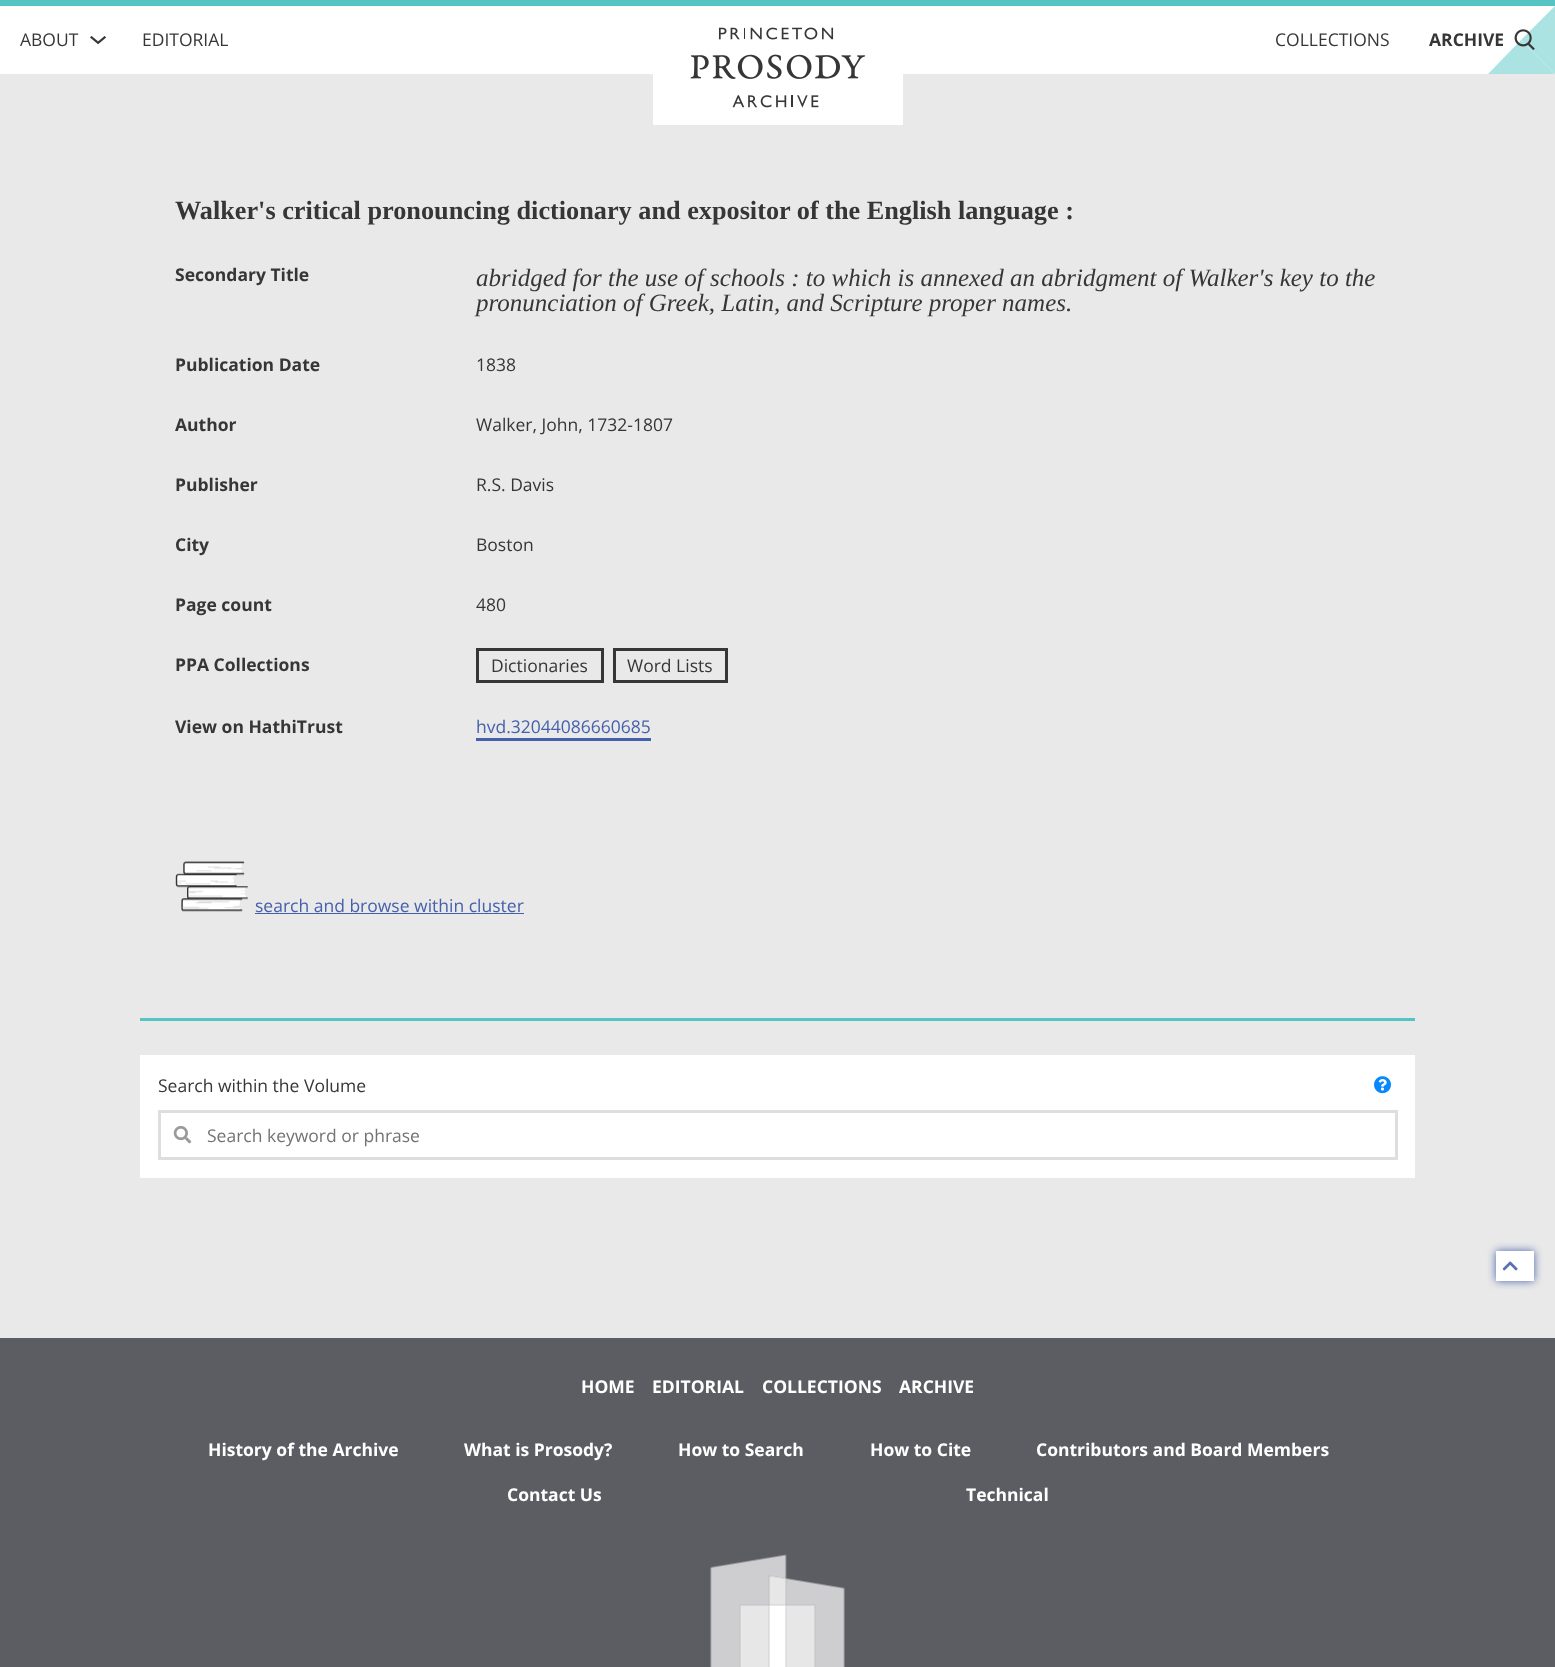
<!DOCTYPE html>
<meta charset="utf-8">
<style>body { margin: 0 } canvas { display: block }</style>
<canvas id="canvas" width="1555" height="1667"></canvas>
<img id="img1" src="images/1.png" hidden>
<img id="img2" src="images/2.png" hidden>
<img id="img3" src="images/3.png" hidden>
<img id="img4" src="images/4.png" hidden>
<img id="img5" src="images/5.png" hidden>
<img id="img6" src="images/6.png" hidden>
<img id="img7" src="images/7.png" hidden>
<img id="img8" src="images/8.png" hidden>
<script>
window.onload = function () {
    const canvas = document.getElementById('canvas');
    const context = canvas.getContext('2d');
    context.miterLimit = 4;
    context.fontKerning = 'normal';

    context.fillStyle = 'rgb(233, 233, 233)';
    context.fillRect(0, 0, 1555, 1667);
    context.fillStyle = 'rgb(255, 255, 255)';
    context.fillRect(0, 6, 1555, 68);
    context.fillStyle = 'rgb(87, 196, 196)';
    context.fillRect(0, 0, 1555, 6);
    context.drawImage(document.getElementById('img1'), 90, 36, 16, 9);
    context.fillStyle = 'rgb(255, 255, 255)';
    context.fillRect(653, 74, 250, 51);
    context.drawImage(document.getElementById('img2'), 690, 27, 176, 81);
    context.fillStyle = 'rgb(171, 226, 226)';
    context.beginPath();
    context.moveTo(1555, 6);
    context.lineTo(1555, 74);
    context.lineTo(1521, 40);
    context.closePath();
    context.fill();
    context.beginPath();
    context.moveTo(1555, 74);
    context.lineTo(1488, 74);
    context.lineTo(1521, 40);
    context.closePath();
    context.fill();
    context.drawImage(document.getElementById('img3'), 1514, 29, 21, 22);
    context.fillStyle = 'rgb(87, 196, 196)';
    context.fillRect(140, 1018, 1275, 3);
    context.strokeStyle = 'rgb(54, 54, 54)';
    context.lineWidth = 3;
    context.strokeRect(477.5, 649.5, 125, 32);
    context.strokeRect(614.5, 649.5, 112, 32);
    context.fillStyle = 'rgb(70, 97, 172)';
    context.fillRect(476, 738, 175, 3);
    context.drawImage(document.getElementById('img4'), 175, 861, 73, 51);
    context.fillRect(255, 913, 269, 1);
    context.fillStyle = 'rgb(255, 255, 255)';
    context.fillRect(140, 1055, 1275, 123);
    context.strokeStyle = 'rgb(222, 222, 222)';
    context.strokeRect(159.5, 1111.5, 1237, 47);
    context.drawImage(document.getElementById('img5'), 173, 1126, 19, 18);
    context.drawImage(document.getElementById('img6'), 1374, 1076, 17, 18);
    context.fillStyle = 'rgb(70, 97, 172)';
    context.filter = 'blur(4px)';
    context.beginPath();
    context.rect(1496, 1251, 38, 30);
    context.fill();
    context.filter = 'none';
    context.fillStyle = 'rgb(255, 255, 255)';
    context.fillRect(1496, 1251, 38, 30);
    context.drawImage(document.getElementById('img7'), 1502, 1261, 16, 10);
    context.fillStyle = 'rgb(92, 92, 99)';
    context.fillRect(0, 1338, 1555, 329);
    context.drawImage(document.getElementById('img8'), 710, 1554, 135, 113);
    context.font = '17.5px Open Sans';
    context.fillStyle = 'rgb(54, 54, 54)';
    context.fillText('ABOUT', 20, 46);
    context.fillText('EDITORIAL', 142, 46);
    context.fillText('COLLECTIONS', 1275, 46);
    context.font = 'bold 17.5px Open Sans';
    context.fillText('ARCHIVE', 1429, 46);
    context.font = 'bold 26.25px Liberation Serif';
    context.fillText('Walker\'s critical pronouncing dictionary and expositor of the English language :', 175, 219);
    context.font = 'bold 17.5px Open Sans';
    context.fillText('Secondary Title', 175, 281);
    context.font = 'italic 25px Liberation Serif';
    context.fillText('abridged for the use of schools : to which is annexed an abridgment of Walker\'s key to the', 476, 286);
    context.fillText('pronunciation of Greek, Latin, and Scripture proper names.', 476, 311);
    context.font = 'bold 17.5px Open Sans';
    context.fillText('Publication Date', 175, 371);
    context.font = '17.5px Open Sans';
    context.fillText('1838', 476, 371);
    context.font = 'bold 17.5px Open Sans';
    context.fillText('Author', 175, 431);
    context.font = '17.5px Open Sans';
    context.fillText('Walker, John, 1732-1807', 476, 431);
    context.font = 'bold 17.5px Open Sans';
    context.fillText('Publisher', 175, 491);
    context.font = '17.5px Open Sans';
    context.fillText('R.S. Davis', 476, 491);
    context.font = 'bold 17.5px Open Sans';
    context.fillText('City', 175, 551);
    context.font = '17.5px Open Sans';
    context.fillText('Boston', 476, 551);
    context.font = 'bold 17.5px Open Sans';
    context.fillText('Page count', 175, 611);
    context.font = '17.5px Open Sans';
    context.fillText('480', 476, 611);
    context.font = 'bold 17.5px Open Sans';
    context.fillText('PPA Collections', 175, 671);
    context.font = '17.5px Open Sans';
    context.fillText('Dictionaries', 491, 672);
    context.fillText('Word Lists', 627, 672);
    context.font = 'bold 17.5px Open Sans';
    context.fillText('View on HathiTrust', 175, 733);
    context.font = '17.5px Open Sans';
    context.fillStyle = 'rgb(70, 97, 172)';
    context.fillText('hvd.32044086660685', 476, 733);
    context.fillText('search and browse within cluster', 255, 912);
    context.fillStyle = 'rgb(54, 54, 54)';
    context.fillText('Search within the Volume', 158, 1092);
    context.fillStyle = 'rgb(115, 115, 115)';
    context.fillText('Search keyword or phrase', 207, 1142);
    context.font = 'bold 17.5px Open Sans';
    context.fillStyle = 'rgb(255, 255, 255)';
    context.fillText('HOME', 581, 1393);
    context.fillText('EDITORIAL', 652, 1393);
    context.fillText('COLLECTIONS', 762, 1393);
    context.fillText('ARCHIVE', 899, 1393);
    context.fillText('History of the Archive', 208, 1456);
    context.fillText('What is Prosody?', 464, 1456);
    context.fillText('How to Search', 678, 1456);
    context.fillText('How to Cite', 870, 1456);
    context.fillText('Contributors and Board Members', 1036, 1456);
    context.fillText('Contact Us', 507, 1501);
    context.fillText('Technical', 966, 1501);
};
</script>
